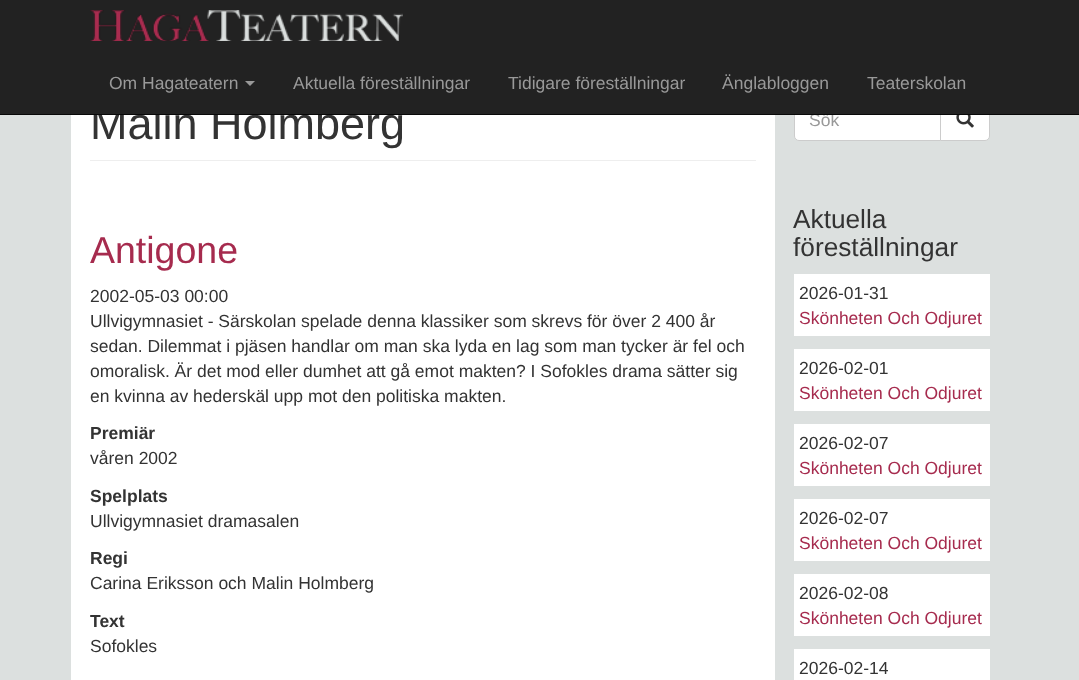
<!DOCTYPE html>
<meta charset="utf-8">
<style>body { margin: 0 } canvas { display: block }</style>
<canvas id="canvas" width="1079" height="680"></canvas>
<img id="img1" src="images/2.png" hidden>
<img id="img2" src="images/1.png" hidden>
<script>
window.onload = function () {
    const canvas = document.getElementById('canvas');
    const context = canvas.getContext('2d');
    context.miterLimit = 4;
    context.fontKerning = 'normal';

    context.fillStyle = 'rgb(220, 224, 223)';
    context.fillRect(0, 0, 1079, 680);
    context.fillStyle = 'rgb(255, 255, 255)';
    context.fillRect(71, 115, 704, 565);
    context.fillStyle = 'rgb(238, 238, 238)';
    context.fillRect(90, 160, 666, 1);
    context.fillStyle = 'rgb(255, 255, 255)';
    context.beginPath();
    context.roundRect(940.5, 99.5, 49, 41, [0, 4.5, 4.5, 0]);
    context.fill();
    context.strokeStyle = 'rgb(204, 204, 204)';
    context.stroke();
    context.beginPath();
    context.roundRect(794.5, 99.5, 146, 41, [4.5, 0, 0, 4.5]);
    context.fill();
    context.stroke();
    context.drawImage(document.getElementById('img1'), 956, 115, 18, 13);
    context.fillRect(794, 274, 196, 62);
    context.fillRect(794, 349, 196, 62);
    context.fillRect(794, 424, 196, 62);
    context.fillRect(794, 499, 196, 62);
    context.fillRect(794, 574, 196, 62);
    context.fillRect(794, 649, 196, 31);
    context.font = '45px Liberation Sans';
    context.fillStyle = 'rgb(51, 51, 51)';
    context.fillText('Malin Holmberg', 90, 139);
    context.font = '37.5px Liberation Sans';
    context.fillStyle = 'rgb(166, 43, 78)';
    context.fillText('Antigone', 90, 263);
    context.font = '17.5px Liberation Sans';
    context.fillStyle = 'rgb(51, 51, 51)';
    context.fillText('2002-05-03 00:00', 90, 302);
    context.fillText('Ullvigymnasiet - Särskolan spelade denna klassiker som skrevs för över 2 400 år', 90, 327);
    context.fillText('sedan. Dilemmat i pjäsen handlar om man ska lyda en lag som man tycker är fel och', 90, 352);
    context.fillText('omoralisk. Är det mod eller dumhet att gå emot makten? I Sofokles drama sätter sig', 90, 377);
    context.fillText('en kvinna av hederskäl upp mot den politiska makten.', 90, 402);
    context.font = 'bold 17.5px Liberation Sans';
    context.fillText('Premiär', 90, 439);
    context.font = '17.5px Liberation Sans';
    context.fillText('våren 2002', 90, 464);
    context.font = 'bold 17.5px Liberation Sans';
    context.fillText('Spelplats', 90, 502);
    context.font = '17.5px Liberation Sans';
    context.fillText('Ullvigymnasiet dramasalen', 90, 527);
    context.font = 'bold 17.5px Liberation Sans';
    context.fillText('Regi', 90, 564);
    context.font = '17.5px Liberation Sans';
    context.fillText('Carina Eriksson och Malin Holmberg', 90, 589);
    context.font = 'bold 17.5px Liberation Sans';
    context.fillText('Text', 90, 627);
    context.font = '17.5px Liberation Sans';
    context.fillText('Sofokles', 90, 652);
    context.fillStyle = 'rgb(153, 153, 153)';
    context.fillText('Sök', 809, 126);
    context.fillStyle = 'rgb(34, 34, 34)';
    context.fillRect(0, 0, 1079, 114);
    context.fillStyle = 'rgb(153, 153, 153)';
    context.fillText('Teaterskolan', 867, 89);
    context.fillText('Änglabloggen', 722, 89);
    context.fillText('Tidigare föreställningar', 508, 89);
    context.fillText('Aktuella föreställningar', 293, 89);
    context.beginPath();
    context.moveTo(245, 81);
    context.lineTo(255, 81);
    context.lineTo(250, 86);
    context.closePath();
    context.fill();
    context.fillText('Om Hagateatern', 109, 89);
    context.drawImage(document.getElementById('img2'), 90, 10, 313, 31);
    context.fillStyle = 'rgb(8, 8, 8)';
    context.fillRect(0, 114, 1079, 1);
    context.font = '26.25px Liberation Sans';
    context.fillStyle = 'rgb(51, 51, 51)';
    context.fillText('Aktuella', 793, 228);
    context.fillText('föreställningar', 793, 256);
    context.font = '17.5px Liberation Sans';
    context.fillText('2026-01-31', 799, 299);
    context.fillStyle = 'rgb(166, 43, 78)';
    context.fillText('Skönheten Och Odjuret', 799, 324);
    context.fillStyle = 'rgb(51, 51, 51)';
    context.fillText('2026-02-01', 799, 374);
    context.fillStyle = 'rgb(166, 43, 78)';
    context.fillText('Skönheten Och Odjuret', 799, 399);
    context.fillStyle = 'rgb(51, 51, 51)';
    context.fillText('2026-02-07', 799, 449);
    context.fillStyle = 'rgb(166, 43, 78)';
    context.fillText('Skönheten Och Odjuret', 799, 474);
    context.fillStyle = 'rgb(51, 51, 51)';
    context.fillText('2026-02-07', 799, 524);
    context.fillStyle = 'rgb(166, 43, 78)';
    context.fillText('Skönheten Och Odjuret', 799, 549);
    context.fillStyle = 'rgb(51, 51, 51)';
    context.fillText('2026-02-08', 799, 599);
    context.fillStyle = 'rgb(166, 43, 78)';
    context.fillText('Skönheten Och Odjuret', 799, 624);
    context.fillStyle = 'rgb(51, 51, 51)';
    context.fillText('2026-02-14', 799, 674);
};
</script>
